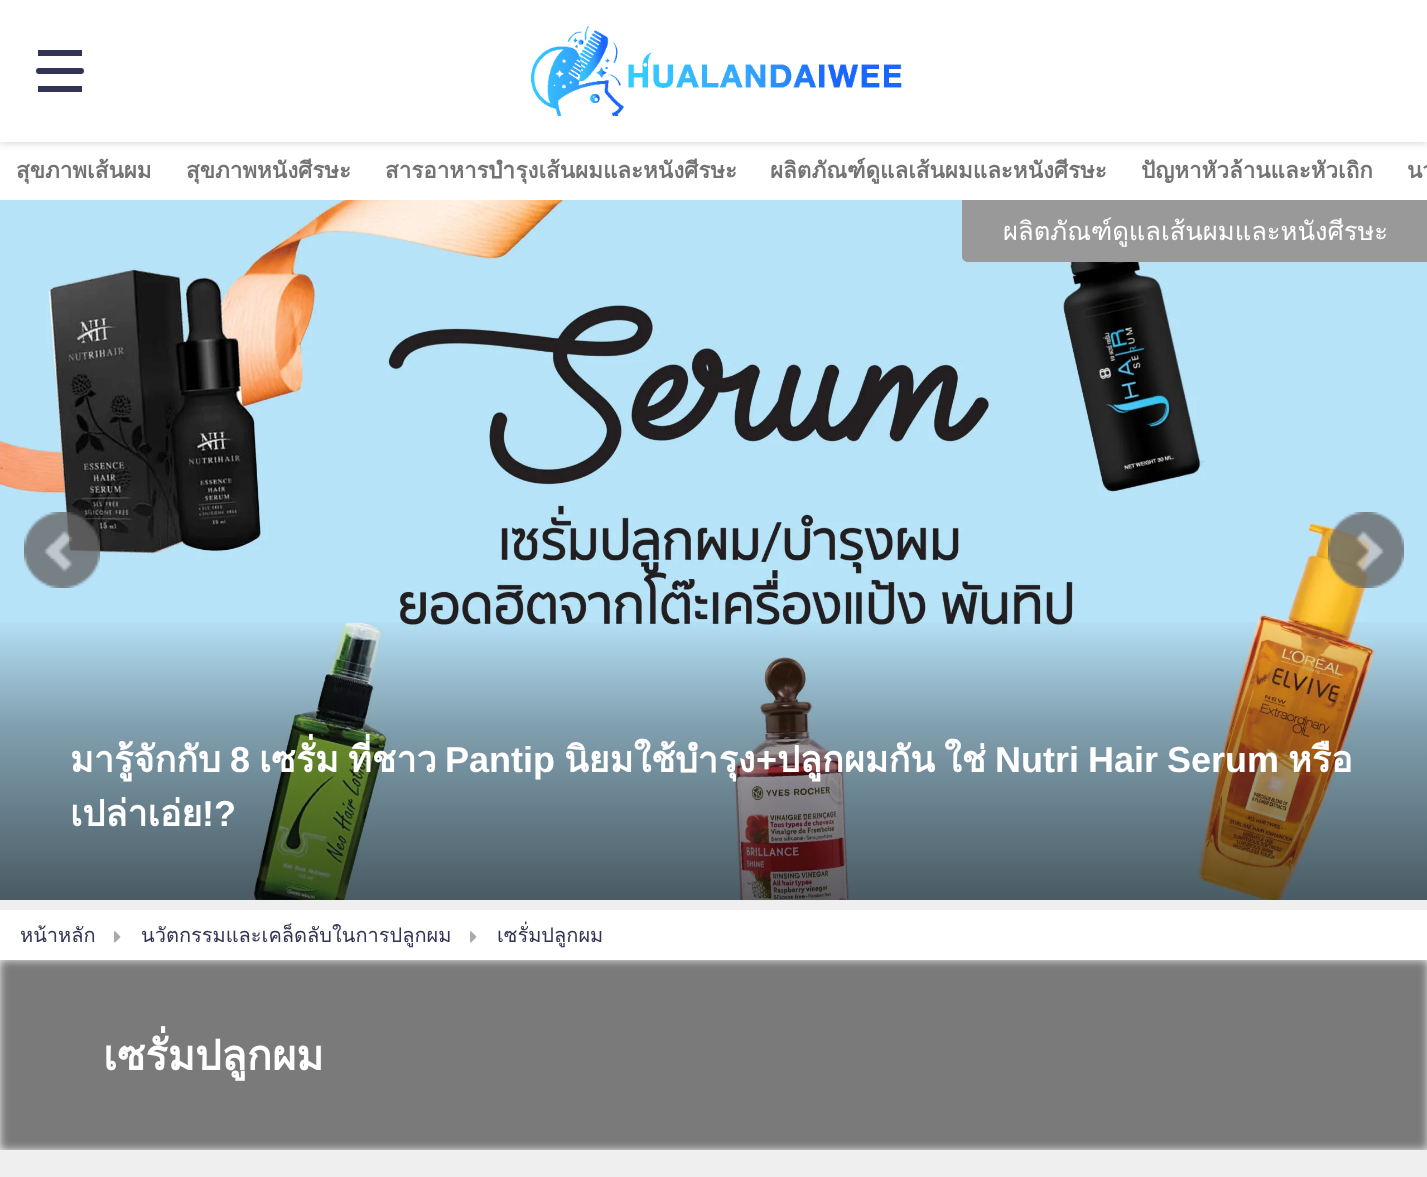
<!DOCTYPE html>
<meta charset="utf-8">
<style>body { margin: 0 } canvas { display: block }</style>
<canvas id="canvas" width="1427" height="1177"></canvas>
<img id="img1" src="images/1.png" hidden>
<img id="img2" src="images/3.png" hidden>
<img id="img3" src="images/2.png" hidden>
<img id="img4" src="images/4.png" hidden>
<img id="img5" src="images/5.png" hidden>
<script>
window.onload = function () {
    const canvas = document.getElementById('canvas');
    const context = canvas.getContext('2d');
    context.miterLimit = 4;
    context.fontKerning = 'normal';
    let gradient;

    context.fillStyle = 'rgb(239, 239, 239)';
    context.fillRect(0, 0, 1427, 1177);
    context.fillStyle = 'rgb(255, 255, 255)';
    context.fillRect(0, 142, 1427, 58);
    context.fillStyle = 'rgba(0, 0, 0, 0.2)';
    context.filter = 'blur(4px)';
    context.beginPath();
    context.rect(0, 0, 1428, 142);
    context.fill();
    context.filter = 'none';
    context.fillStyle = 'rgb(255, 255, 255)';
    context.fillRect(0, 0, 1427, 142);
    context.fillStyle = 'rgb(51, 51, 85)';
    context.fillRect(38, 50, 44, 6);
    context.beginPath();
    context.roundRect(36, 68, 48, 6, 3);
    context.fill();
    context.fillRect(38, 86, 44, 6);
    context.drawImage(document.getElementById('img1'), 531, 26, 371, 90);
    context.drawImage(document.getElementById('img2'), 0, 200, 1427, 700);
    context.drawImage(document.getElementById('img3'), 24, 512, 76, 76);
    context.fillStyle = 'rgb(153, 153, 153)';
    context.beginPath();
    context.moveTo(962, 200);
    context.lineTo(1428, 200);
    context.lineTo(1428, 262);
    context.lineTo(968, 262);
    context.bezierCurveTo(964.5, 262, 962, 259.5, 962, 256);
    context.closePath();
    context.fill();
    gradient = context.createLinearGradient(714, 614, 714, 900);
    gradient.addColorStop(0, 'rgba(0, 0, 0, 0)');
    gradient.addColorStop(0.4, 'rgba(0, 0, 0, 0.3)');
    gradient.addColorStop(1, 'rgba(0, 0, 0, 0.6)');
    context.fillStyle = gradient;
    context.fillRect(0, 622, 1427, 278);
    context.drawImage(document.getElementById('img4'), 1328, 512, 76, 76);
    context.save();
    context.beginPath();
    context.rect(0, 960, 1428, 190);
    context.clip();
    context.fillStyle = 'rgb(122, 122, 122)';
    context.filter = 'blur(4px)';
    context.beginPath();
    context.rect(0, 960, 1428, 190);
    context.fill();
    context.filter = 'none';
    context.restore();
    context.fillStyle = 'rgb(255, 255, 255)';
    context.fillRect(0, 910, 1427, 50);
    context.drawImage(document.getElementById('img5'), 114, 931, 7, 12);
    context.drawImage(document.getElementById('img5'), 470, 931, 7, 12);
    context.font = 'bold 22.4px Loma';
    context.fillStyle = 'rgb(115, 115, 115)';
    context.fillText('สุขภาพเส้นผม', 16, 178);
    context.fillText('สุขภาพหนังศีรษะ', 186, 178);
    context.fillText('สารอาหารบำรุงเส้นผมและหนังศีรษะ', 385, 178);
    context.fillText('ผลิตภัณฑ์ดูแลเส้นผมและหนังศีรษะ', 770, 178);
    context.fillText('ปัญหาหัวล้านและหัวเถิก', 1141, 178);
    context.fillText('นว', 1407, 178);
    context.font = '25.6px Loma';
    context.fillStyle = 'rgb(255, 255, 255)';
    context.fillText('ผลิตภัณฑ์ดูแลเส้นผมและหนังศีรษะ', 1003, 240);
    context.font = 'bold 36px Loma';
    context.fillText('มารู้จักกับ', 70, 772);
    context.font = 'bold 36px Liberation Sans';
    context.fillText('8', 230, 772);
    context.font = 'bold 36px Loma';
    context.fillText('เซรั่ม', 259, 772);
    context.fillText('ที่ชาว', 348, 772);
    context.font = 'bold 36px Liberation Sans';
    context.fillText('Pantip', 445, 772);
    context.font = 'bold 36px Loma';
    context.fillText('นิยมใช้บำรุง', 564, 772);
    context.font = 'bold 36px Liberation Sans';
    context.fillText('+', 756, 772);
    context.font = 'bold 36px Loma';
    context.fillText('ปลูกผมกัน', 777, 772);
    context.fillText('ใช่', 944, 772);
    context.wordSpacing = '-1px';
    context.font = 'bold 36px Liberation Sans';
    context.fillText('Nutri Hair Serum', 995, 772);
    context.wordSpacing = '0px';
    context.font = 'bold 36px Loma';
    context.fillText('หรือ', 1288, 772);
    context.fillText('เปล่าเอ่ย', 70, 826);
    context.font = 'bold 36px Liberation Sans';
    context.fillText('!?', 202, 826);
    context.font = '20px Loma';
    context.fillStyle = 'rgb(51, 51, 85)';
    context.fillText('หน้าหลัก', 20, 942);
    context.fillText('นวัตกรรมและเคล็ดลับในการปลูกผม', 141, 942);
    context.fillText('เซรั่มปลูกผม', 497, 942);
    context.font = 'bold 41.5px Loma';
    context.fillStyle = 'rgb(255, 255, 255)';
    context.fillText('เซรั่มปลูกผม', 103, 1070);
};
</script>
